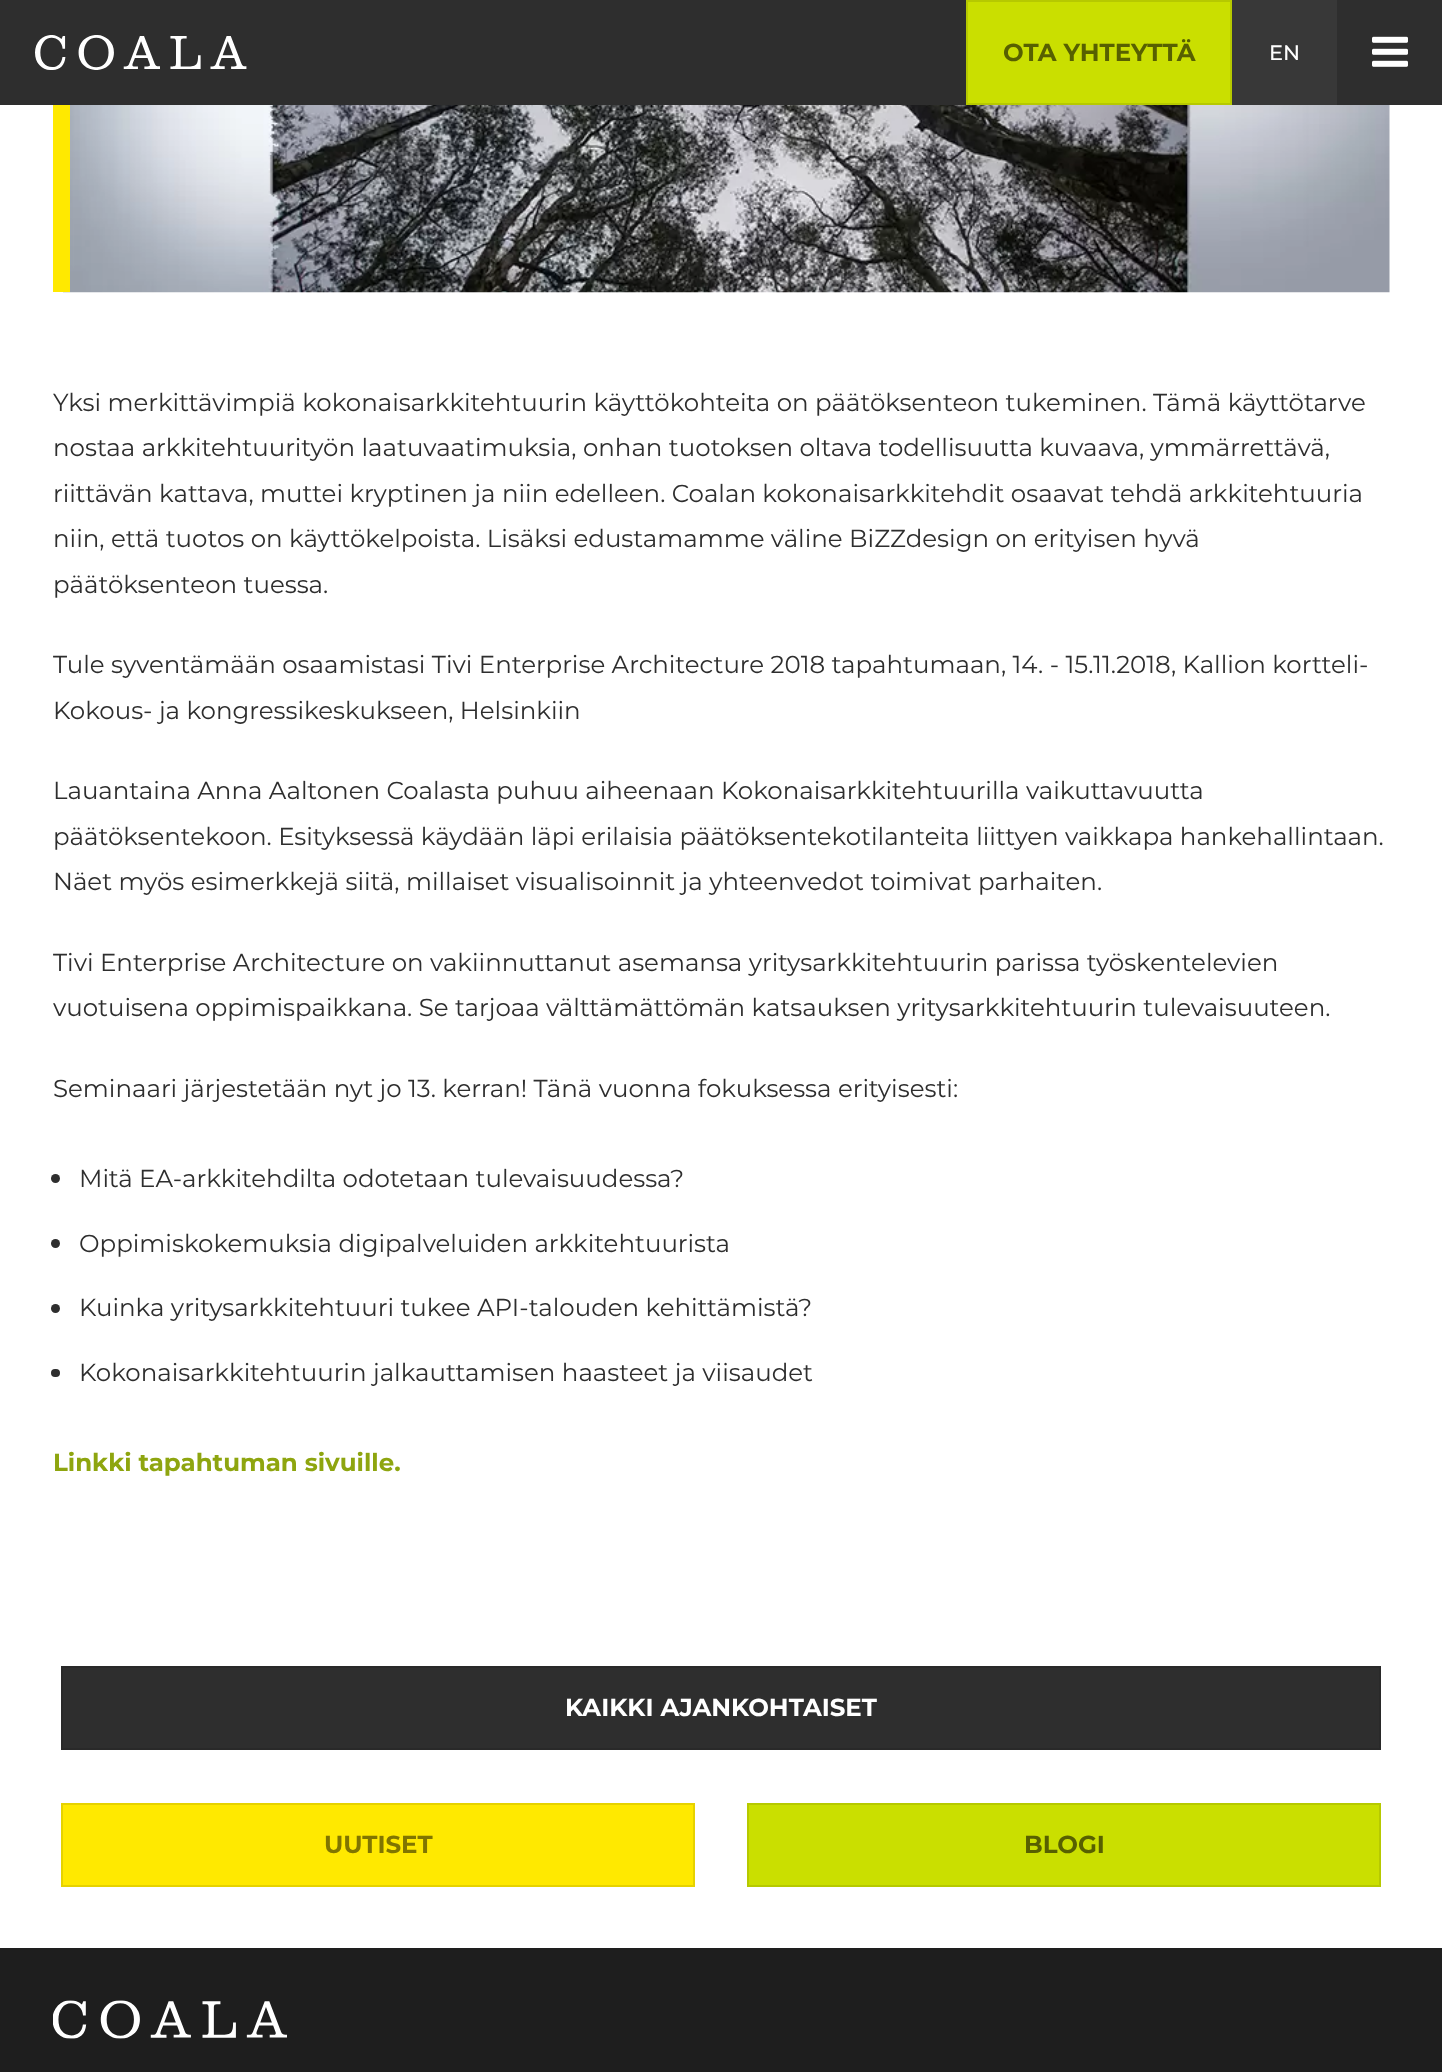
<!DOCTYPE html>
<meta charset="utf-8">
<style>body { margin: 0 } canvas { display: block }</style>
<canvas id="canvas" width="1442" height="2072"></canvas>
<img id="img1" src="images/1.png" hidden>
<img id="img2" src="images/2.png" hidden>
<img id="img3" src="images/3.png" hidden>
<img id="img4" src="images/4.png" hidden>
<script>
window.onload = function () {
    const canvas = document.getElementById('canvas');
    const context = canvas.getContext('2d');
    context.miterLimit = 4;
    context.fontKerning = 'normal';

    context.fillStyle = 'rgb(30, 30, 30)';
    context.fillRect(0, 0, 1442, 2072);
    context.fillStyle = 'rgb(46, 46, 46)';
    context.fillRect(0, 0, 1442, 105);
    context.drawImage(document.getElementById('img1'), 35, 35, 212, 35);
    context.fillStyle = 'rgb(202, 223, 0)';
    context.beginPath();
    context.rect(967, 1, 264, 103);
    context.fill();
    context.strokeStyle = 'rgb(182, 201, 0)';
    context.lineWidth = 2;
    context.stroke();
    context.drawImage(document.getElementById('img2'), 1372, 36, 36, 31);
    context.fillStyle = 'rgb(56, 56, 56)';
    context.fillRect(1232, 0, 105, 105);
    context.fillStyle = 'rgb(255, 255, 255)';
    context.fillRect(0, 105, 1442, 1843);
    context.drawImage(document.getElementById('img3'), 63, 105, 1327, 188);
    context.fillStyle = 'rgb(255, 233, 0)';
    context.fillRect(53, 105, 17, 187);
    context.fillStyle = 'rgb(46, 46, 46)';
    context.beginPath();
    context.arc(55.5, 1178.5, 4.5, 0, 2 * Math.PI);
    context.fill();
    context.beginPath();
    context.arc(55.5, 1243.5, 4.5, 0, 2 * Math.PI);
    context.fill();
    context.beginPath();
    context.arc(55.5, 1308.5, 4.5, 0, 2 * Math.PI);
    context.fill();
    context.beginPath();
    context.roundRect(51, 1369, 9, 8, 4);
    context.fill();
    context.beginPath();
    context.rect(62, 1667, 1318, 82);
    context.fill();
    context.strokeStyle = 'rgb(41, 41, 41)';
    context.stroke();
    context.fillStyle = 'rgb(255, 233, 0)';
    context.beginPath();
    context.rect(62, 1804, 632, 82);
    context.fill();
    context.strokeStyle = 'rgb(230, 210, 0)';
    context.stroke();
    context.fillStyle = 'rgb(202, 223, 0)';
    context.beginPath();
    context.rect(748, 1804, 632, 82);
    context.fill();
    context.strokeStyle = 'rgb(182, 201, 0)';
    context.stroke();
    context.drawImage(document.getElementById('img4'), 53, 2000, 234, 39);
    context.font = 'bold 24.5px Montserrat';
    context.fillStyle = 'rgb(87, 96, 0)';
    context.fillText('OTA YHTEYTTÄ', 1003, 61);
    context.font = '500 21px Montserrat';
    context.fillStyle = 'rgb(255, 255, 255)';
    context.fillText('EN', 1269, 60);
    context.font = '24.5px Montserrat';
    context.fillStyle = 'rgb(46, 46, 46)';
    context.fillText('Yksi merkittävimpiä kokonaisarkkitehtuurin käyttökohteita on päätöksenteon tukeminen. Tämä käyttötarve', 53, 411);
    context.fillText('nostaa arkkitehtuurityön laatuvaatimuksia, onhan tuotoksen oltava todellisuutta kuvaava, ymmärrettävä,', 53, 456);
    context.fillText('riittävän kattava, muttei kryptinen ja niin edelleen. Coalan kokonaisarkkitehdit osaavat tehdä arkkitehtuuria', 53, 502);
    context.fillText('niin, että tuotos on käyttökelpoista. Lisäksi edustamamme väline BiZZdesign on erityisen hyvä', 53, 547);
    context.fillText('päätöksenteon tuessa.', 53, 593);
    context.fillText('Tule syventämään osaamistasi Tivi Enterprise Architecture 2018 tapahtumaan, 14. - 15.11.2018, Kallion kortteli-', 53, 673);
    context.fillText('Kokous- ja kongressikeskukseen, Helsinkiin', 53, 719);
    context.fillText('Lauantaina Anna Aaltonen Coalasta puhuu aiheenaan Kokonaisarkkitehtuurilla vaikuttavuutta', 53, 799);
    context.fillText('päätöksentekoon. Esityksessä käydään läpi erilaisia päätöksentekotilanteita liittyen vaikkapa hankehallintaan.', 53, 845);
    context.fillText('Näet myös esimerkkejä siitä, millaiset visualisoinnit ja yhteenvedot toimivat parhaiten.', 53, 890);
    context.fillText('Tivi Enterprise Architecture on vakiinnuttanut asemansa yritysarkkitehtuurin parissa työskentelevien', 53, 971);
    context.fillText('vuotuisena oppimispaikkana. Se tarjoaa välttämättömän katsauksen yritysarkkitehtuurin tulevaisuuteen.', 53, 1016);
    context.fillText('Seminaari järjestetään nyt jo 13. kerran! Tänä vuonna fokuksessa erityisesti:', 53, 1097);
    context.fillText('Mitä EA-arkkitehdilta odotetaan tulevaisuudessa?', 79, 1187);
    context.fillText('Oppimiskokemuksia digipalveluiden arkkitehtuurista', 79, 1252);
    context.fillText('Kuinka yritysarkkitehtuuri tukee API-talouden kehittämistä?', 79, 1316);
    context.fillText('Kokonaisarkkitehtuurin jalkauttamisen haasteet ja viisaudet', 79, 1381);
    context.font = 'bold 24.5px Montserrat';
    context.fillStyle = 'rgb(142, 165, 15)';
    context.fillText('Linkki tapahtuman sivuille.', 53, 1471);
    context.fillStyle = 'rgb(255, 255, 255)';
    context.fillText('KAIKKI AJANKOHTAISET', 565, 1716);
    context.fillStyle = 'rgb(128, 117, 0)';
    context.fillText('UUTISET', 324, 1853);
    context.fillStyle = 'rgb(87, 96, 0)';
    context.fillText('BLOGI', 1024, 1853);
};
</script>
